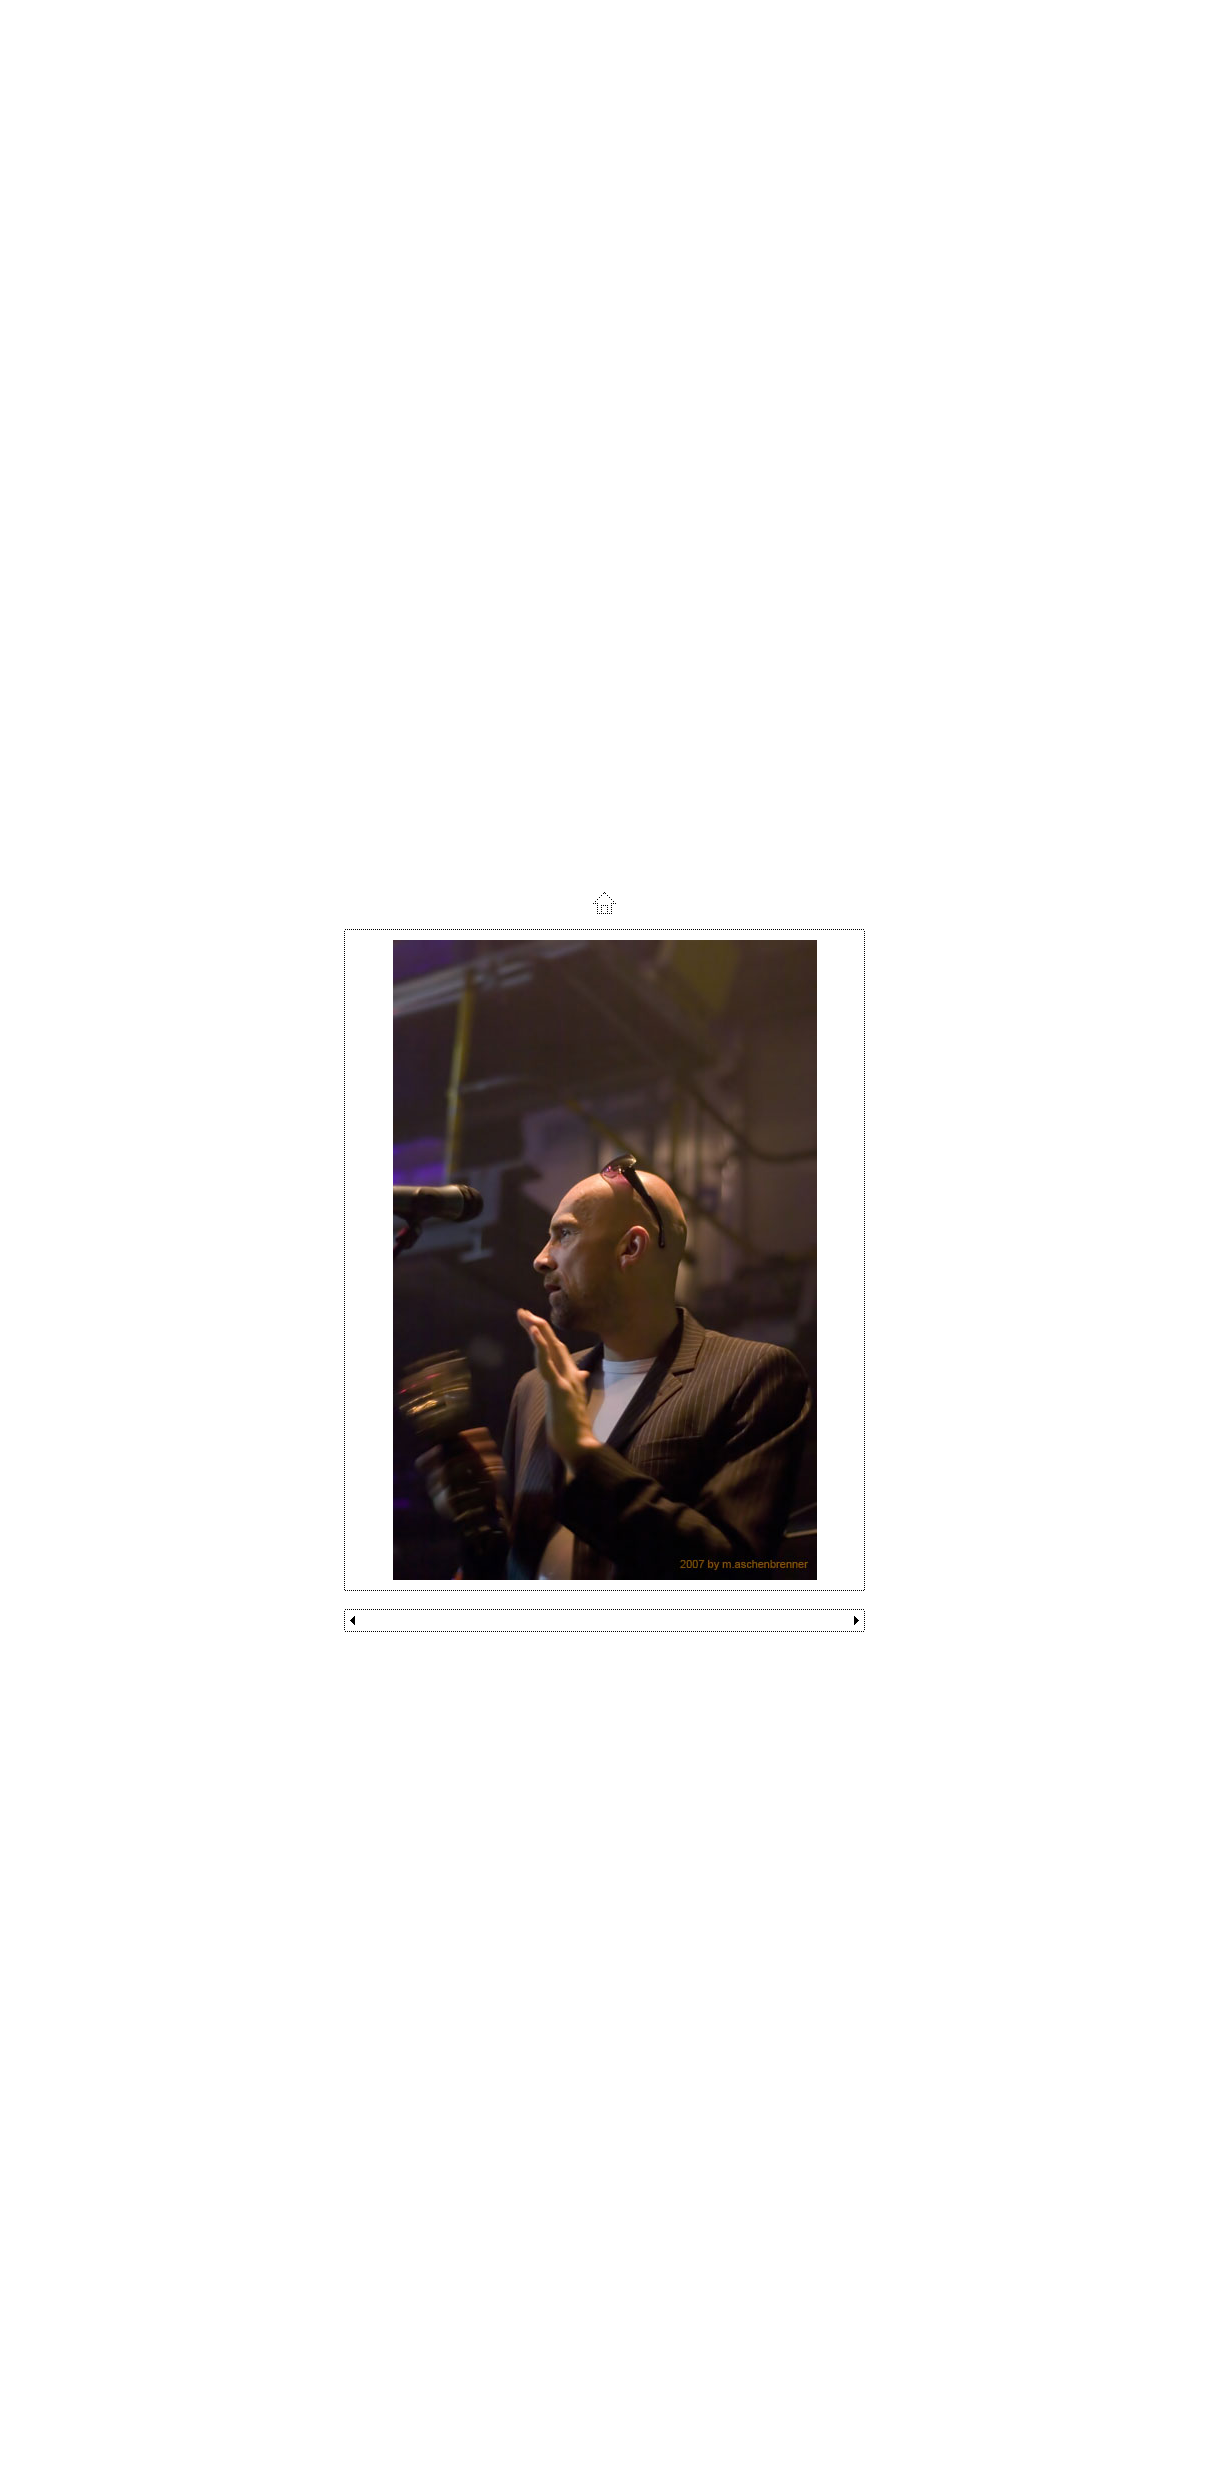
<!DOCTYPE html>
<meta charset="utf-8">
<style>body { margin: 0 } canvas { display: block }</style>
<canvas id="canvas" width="1209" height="2473"></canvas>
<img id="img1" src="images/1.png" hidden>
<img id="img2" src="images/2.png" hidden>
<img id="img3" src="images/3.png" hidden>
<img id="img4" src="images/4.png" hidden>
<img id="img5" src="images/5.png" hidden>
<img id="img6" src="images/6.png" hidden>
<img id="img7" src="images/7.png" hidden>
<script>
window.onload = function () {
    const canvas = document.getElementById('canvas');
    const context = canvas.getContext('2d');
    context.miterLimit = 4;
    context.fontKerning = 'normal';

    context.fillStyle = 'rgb(255, 255, 255)';
    context.fillRect(0, 0, 1209, 2473);
    context.drawImage(document.getElementById('img1'), 593, 892, 23, 22);
    context.drawImage(document.getElementById('img2'), 345, 929, 519, 1);
    context.drawImage(document.getElementById('img3'), 344, 931, 1, 659);
    context.drawImage(document.getElementById('img4'), 393, 940, 424, 640);
    context.drawImage(document.getElementById('img3'), 864, 931, 1, 659);
    context.drawImage(document.getElementById('img2'), 345, 1590, 519, 1);
    context.drawImage(document.getElementById('img2'), 345, 1609, 519, 1);
    context.drawImage(document.getElementById('img5'), 344, 1611, 1, 19);
    context.drawImage(document.getElementById('img6'), 350, 1616, 5, 9);
    context.drawImage(document.getElementById('img7'), 854, 1616, 5, 9);
    context.drawImage(document.getElementById('img5'), 864, 1611, 1, 19);
    context.drawImage(document.getElementById('img2'), 345, 1631, 519, 1);
};
</script>
